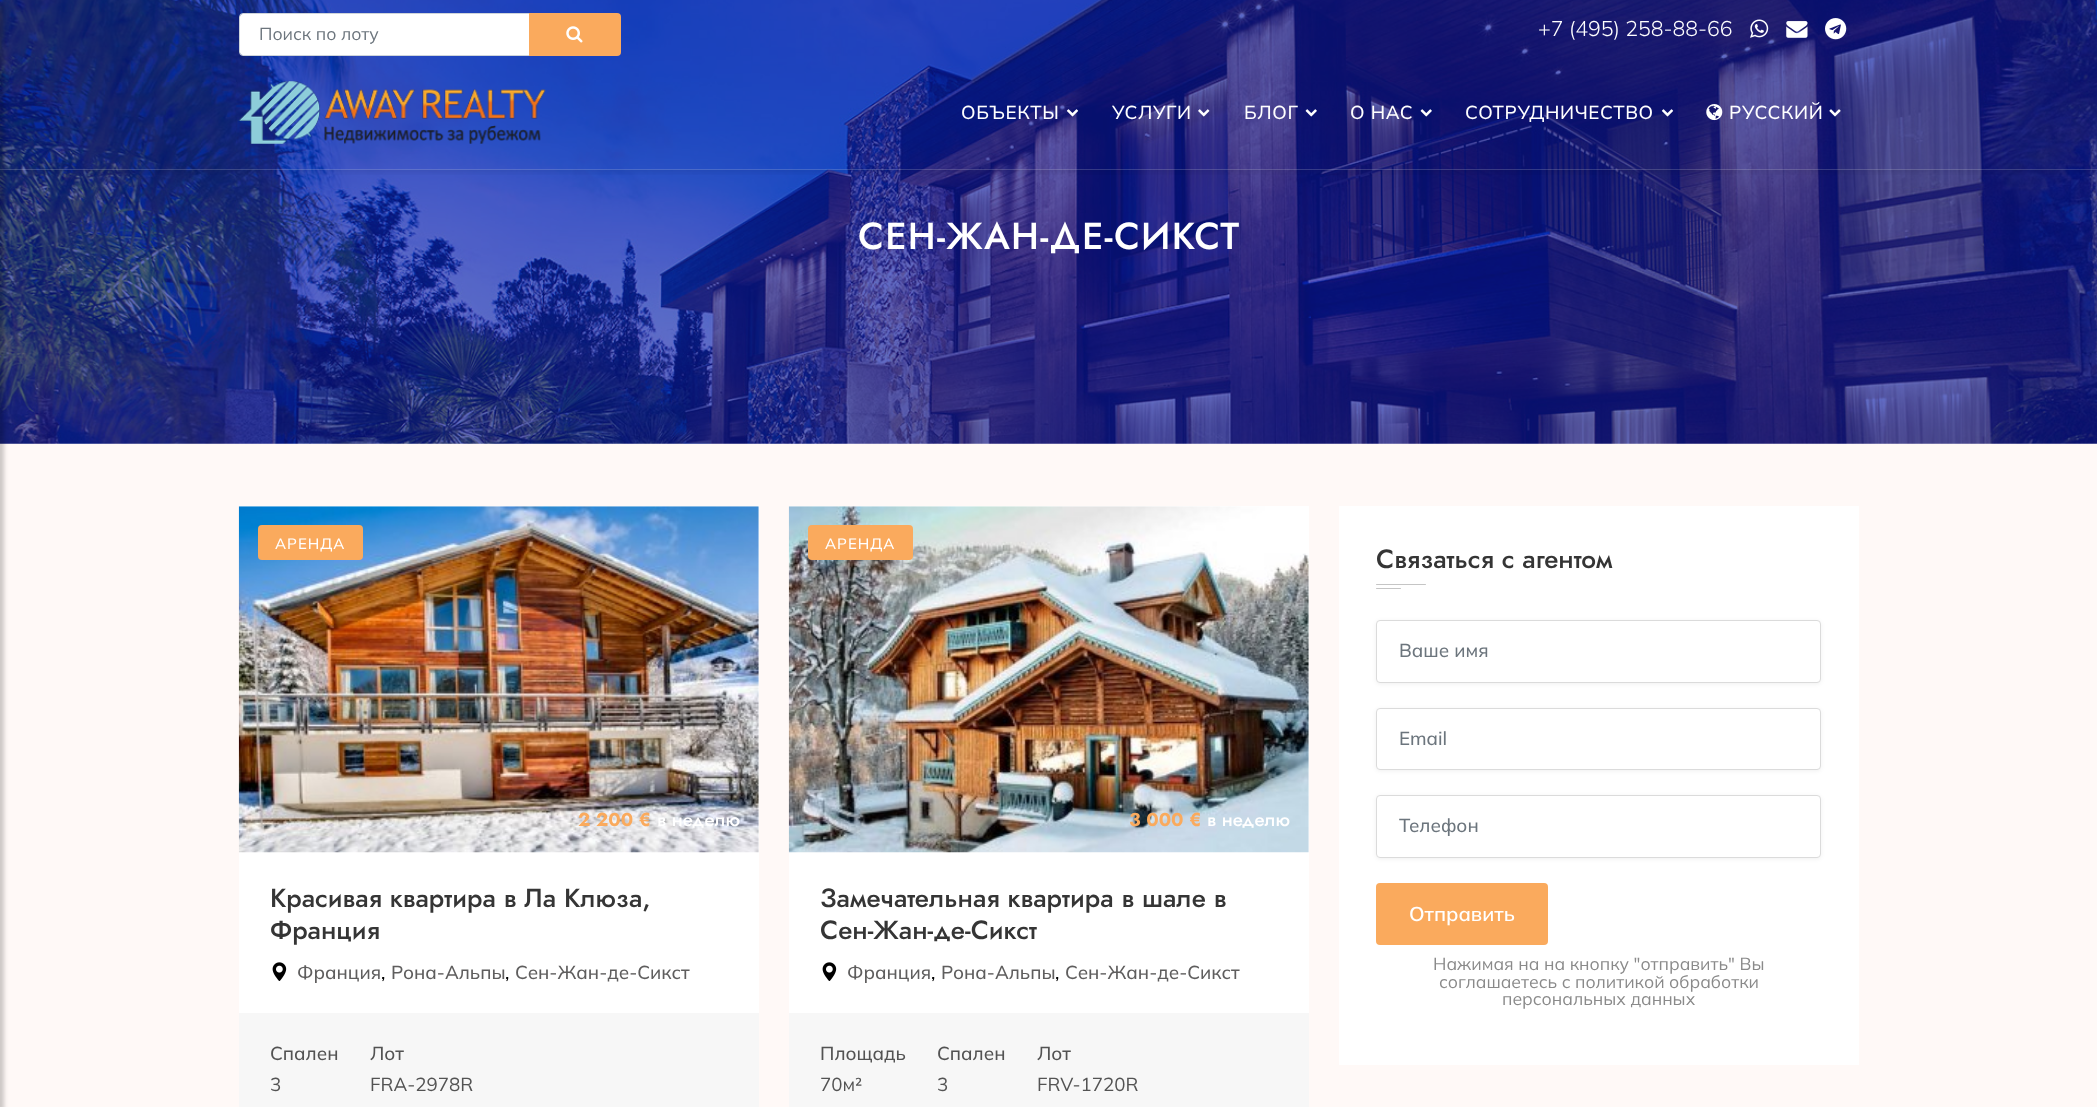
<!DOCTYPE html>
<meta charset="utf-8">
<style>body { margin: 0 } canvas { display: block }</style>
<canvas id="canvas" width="2097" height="1107"></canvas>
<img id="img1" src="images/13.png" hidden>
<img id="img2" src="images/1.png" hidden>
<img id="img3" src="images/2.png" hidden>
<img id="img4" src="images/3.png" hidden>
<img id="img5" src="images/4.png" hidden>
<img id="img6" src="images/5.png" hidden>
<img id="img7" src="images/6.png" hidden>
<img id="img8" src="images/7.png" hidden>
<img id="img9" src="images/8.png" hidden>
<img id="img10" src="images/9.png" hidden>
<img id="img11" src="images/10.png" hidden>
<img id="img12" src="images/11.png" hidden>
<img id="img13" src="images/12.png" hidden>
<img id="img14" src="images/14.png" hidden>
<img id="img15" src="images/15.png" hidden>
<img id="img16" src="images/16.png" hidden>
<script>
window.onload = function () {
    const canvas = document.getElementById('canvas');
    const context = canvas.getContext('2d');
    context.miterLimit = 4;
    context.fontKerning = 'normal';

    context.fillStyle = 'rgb(255, 249, 247)';
    context.fillRect(0, 0, 2097, 1107);
    context.drawImage(document.getElementById('img1'), 0, 0, 2097, 444);
    context.save();
    context.beginPath();
    context.rect(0, 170, 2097, 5);
    context.clip();
    context.fillStyle = 'rgba(0, 0, 0, 0.12)';
    context.filter = 'blur(5px)';
    context.beginPath();
    context.rect(0, 0, 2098, 170);
    context.fill();
    context.filter = 'none';
    context.restore();
    context.fillStyle = 'rgba(220, 220, 220, 0.2)';
    context.fillRect(0, 169, 2097, 1);
    context.fillStyle = 'rgba(0, 0, 0, 0.2)';
    context.filter = 'blur(2px)';
    context.beginPath();
    context.rect(-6, 4, 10, 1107);
    context.fill();
    context.filter = 'none';
    context.fillStyle = 'rgb(255, 255, 255)';
    context.beginPath();
    context.roundRect(240, 14, 289, 41, [2.5, 0, 0, 2.5]);
    context.fill();
    context.beginPath();
    context.roundRect(239.5, 13.5, 290, 42, [3.5, 0, 0, 3.5]);
    context.strokeStyle = 'rgb(206, 212, 218)';
    context.stroke();
    context.fillStyle = 'rgb(250, 170, 93)';
    context.beginPath();
    context.roundRect(529, 13, 92, 43, [0, 4, 4, 0]);
    context.fill();
    context.drawImage(document.getElementById('img2'), 566, 26, 17, 17);
    context.drawImage(document.getElementById('img3'), 1750, 19, 19, 19);
    context.drawImage(document.getElementById('img4'), 1786, 21, 22, 17);
    context.drawImage(document.getElementById('img5'), 1825, 18, 22, 22);
    context.drawImage(document.getElementById('img6'), 238, 81, 308, 63);
    context.drawImage(document.getElementById('img7'), 1066, 109, 13, 8);
    context.drawImage(document.getElementById('img8'), 1198, 109, 12, 8);
    context.drawImage(document.getElementById('img9'), 1305, 109, 12, 8);
    context.drawImage(document.getElementById('img10'), 1420, 109, 12, 8);
    context.drawImage(document.getElementById('img11'), 1661, 109, 13, 8);
    context.drawImage(document.getElementById('img12'), 1706, 104, 17, 17);
    context.drawImage(document.getElementById('img13'), 1829, 109, 12, 8);
    context.fillStyle = 'rgb(255, 255, 255)';
    context.fillRect(239, 506, 520, 507);
    context.drawImage(document.getElementById('img14'), 238, 506, 521, 347);
    context.fillStyle = 'rgb(250, 170, 93)';
    context.beginPath();
    context.roundRect(258, 525, 105, 35, 4);
    context.fill();
    context.drawImage(document.getElementById('img15'), 272, 962, 15, 19);
    context.fillStyle = 'rgb(247, 247, 247)';
    context.fillRect(239, 1013, 520, 94);
    context.fillStyle = 'rgb(255, 255, 255)';
    context.fillRect(789, 506, 520, 507);
    context.drawImage(document.getElementById('img16'), 788, 506, 521, 347);
    context.fillStyle = 'rgb(250, 170, 93)';
    context.beginPath();
    context.roundRect(808, 525, 105, 35, 4);
    context.fill();
    context.drawImage(document.getElementById('img15'), 822, 962, 15, 19);
    context.fillStyle = 'rgb(247, 247, 247)';
    context.fillRect(789, 1013, 520, 94);
    context.fillStyle = 'rgb(255, 255, 255)';
    context.fillRect(1339, 506, 520, 559);
    context.fillStyle = 'rgb(197, 197, 197)';
    context.beginPath();
    context.roundRect(1376, 584, 50, 1, 0.5);
    context.fill();
    context.beginPath();
    context.roundRect(1376, 588, 25, 1, 0.5);
    context.fill();
    context.fillStyle = 'rgba(0, 0, 0, 0.06)';
    context.filter = 'blur(2px)';
    context.beginPath();
    context.roundRect(1376, 621, 445, 63, 4);
    context.fill();
    context.filter = 'none';
    context.fillStyle = 'rgb(255, 255, 255)';
    context.beginPath();
    context.roundRect(1376.5, 620.5, 444, 62, 3.5);
    context.fill();
    context.strokeStyle = 'rgb(219, 219, 219)';
    context.stroke();
    context.fillStyle = 'rgba(0, 0, 0, 0.06)';
    context.filter = 'blur(2px)';
    context.beginPath();
    context.roundRect(1376, 709, 445, 62, 4);
    context.fill();
    context.filter = 'none';
    context.fillStyle = 'rgb(255, 255, 255)';
    context.beginPath();
    context.roundRect(1376.5, 708.5, 444, 61, 3.5);
    context.fill();
    context.stroke();
    context.fillStyle = 'rgba(0, 0, 0, 0.06)';
    context.filter = 'blur(2px)';
    context.beginPath();
    context.roundRect(1376, 796, 445, 63, 4);
    context.fill();
    context.filter = 'none';
    context.fillStyle = 'rgb(255, 255, 255)';
    context.beginPath();
    context.roundRect(1376.5, 795.5, 444, 62, 3.5);
    context.fill();
    context.stroke();
    context.fillStyle = 'rgb(250, 170, 93)';
    context.beginPath();
    context.roundRect(1376, 883, 172, 62, 4);
    context.fill();
    context.font = '17.5px Mulish';
    context.fillStyle = 'rgb(108, 117, 125)';
    context.fillText('Поиск по лоту', 259, 40);
    context.font = '300 21.25px Mulish';
    context.fillStyle = 'rgb(255, 255, 255)';
    context.fillText('+7 (495) 258-88-66', 1538, 36);
    context.letterSpacing = '0.6px';
    context.font = '500 18.75px Mulish';
    context.fillText('ОБЪЕКТЫ', 961, 119);
    context.fillText('УСЛУГИ', 1112, 119);
    context.fillText('БЛОГ', 1244, 119);
    context.fillText('О НАС', 1350, 119);
    context.fillText('СОТРУДНИЧЕСТВО', 1465, 119);
    context.fillText('РУССКИЙ', 1729, 119);
    context.letterSpacing = '1.25px';
    context.font = '500 37.5px Jost';
    context.fillText('СЕН-ЖАН-ДЕ-СИКСТ', 858, 249);
    context.letterSpacing = '1px';
    context.font = '500 15px Mulish';
    context.fillText('АРЕНДА', 275, 549);
    context.letterSpacing = '0px';
    context.font = 'bold 18.75px Jost';
    context.fillStyle = 'rgb(250, 170, 93)';
    context.fillText('2 200 €', 578, 826);
    context.font = '500 18.75px Jost';
    context.fillStyle = 'rgb(255, 255, 255)';
    context.fillText('в неделю', 657, 826);
    context.font = '500 26.25px Jost';
    context.fillStyle = 'rgb(53, 53, 53)';
    context.fillText('Красивая квартира в Ла Клюза,', 270, 907);
    context.fillText('Франция', 270, 939);
    context.font = '500 18.75px Mulish';
    context.fillStyle = 'rgb(95, 94, 94)';
    context.fillText('Франция', 297, 979);
    context.fillStyle = 'rgb(0, 0, 0)';
    context.fillText(',', 381, 979);
    context.fillStyle = 'rgb(95, 94, 94)';
    context.fillText('Рона-Альпы', 391, 979);
    context.fillStyle = 'rgb(0, 0, 0)';
    context.fillText(',', 505, 979);
    context.fillStyle = 'rgb(95, 94, 94)';
    context.fillText('Сен-Жан-де-Сикст', 515, 979);
    context.fillStyle = 'rgb(83, 83, 83)';
    context.fillText('Спален', 270, 1060);
    context.font = '18.75px Mulish';
    context.fillText('3', 270, 1091);
    context.font = '500 18.75px Mulish';
    context.fillText('Лот', 370, 1060);
    context.font = '18.75px Mulish';
    context.fillText('FRA-2978R', 370, 1091);
    context.letterSpacing = '1px';
    context.font = '500 15px Mulish';
    context.fillStyle = 'rgb(255, 255, 255)';
    context.fillText('АРЕНДА', 825, 549);
    context.letterSpacing = '0px';
    context.font = 'bold 18.75px Jost';
    context.fillStyle = 'rgb(250, 170, 93)';
    context.fillText('3 000 €', 1129, 826);
    context.font = '500 18.75px Jost';
    context.fillStyle = 'rgb(255, 255, 255)';
    context.fillText('в неделю', 1207, 826);
    context.font = '500 26.25px Jost';
    context.fillStyle = 'rgb(53, 53, 53)';
    context.fillText('Замечательная квартира в шале в', 820, 907);
    context.fillText('Сен-Жан-де-Сикст', 820, 939);
    context.font = '500 18.75px Mulish';
    context.fillStyle = 'rgb(95, 94, 94)';
    context.fillText('Франция', 847, 979);
    context.fillStyle = 'rgb(0, 0, 0)';
    context.fillText(',', 931, 979);
    context.fillStyle = 'rgb(95, 94, 94)';
    context.fillText('Рона-Альпы', 941, 979);
    context.fillStyle = 'rgb(0, 0, 0)';
    context.fillText(',', 1055, 979);
    context.fillStyle = 'rgb(95, 94, 94)';
    context.fillText('Сен-Жан-де-Сикст', 1065, 979);
    context.fillStyle = 'rgb(83, 83, 83)';
    context.fillText('Площадь', 820, 1060);
    context.font = '18.75px Mulish';
    context.fillText('70м²', 820, 1091);
    context.font = '500 18.75px Mulish';
    context.fillText('Спален', 937, 1060);
    context.font = '18.75px Mulish';
    context.fillText('3', 937, 1091);
    context.font = '500 18.75px Mulish';
    context.fillText('Лот', 1037, 1060);
    context.font = '18.75px Mulish';
    context.fillText('FRV-1720R', 1037, 1091);
    context.font = '500 26.25px Jost';
    context.fillStyle = 'rgb(53, 53, 53)';
    context.fillText('Связаться с агентом', 1376, 568);
    context.font = '500 18.75px Mulish';
    context.fillStyle = 'rgb(108, 117, 125)';
    context.fillText('Ваше имя', 1399, 657);
    context.fillText('Email', 1399, 745);
    context.fillText('Телефон', 1399, 832);
    context.font = '600 20px Mulish';
    context.fillStyle = 'rgb(255, 255, 255)';
    context.fillText('Отправить', 1409, 921);
    context.font = '17.5px Mulish';
    context.fillStyle = 'rgb(138, 138, 138)';
    context.fillText('Нажимая на на кнопку "отправить" Вы', 1433, 970);
    context.fillText('соглашаетесь с политикой обработки', 1439, 988);
    context.fillText('персональных данных', 1502, 1005);
};
</script>
